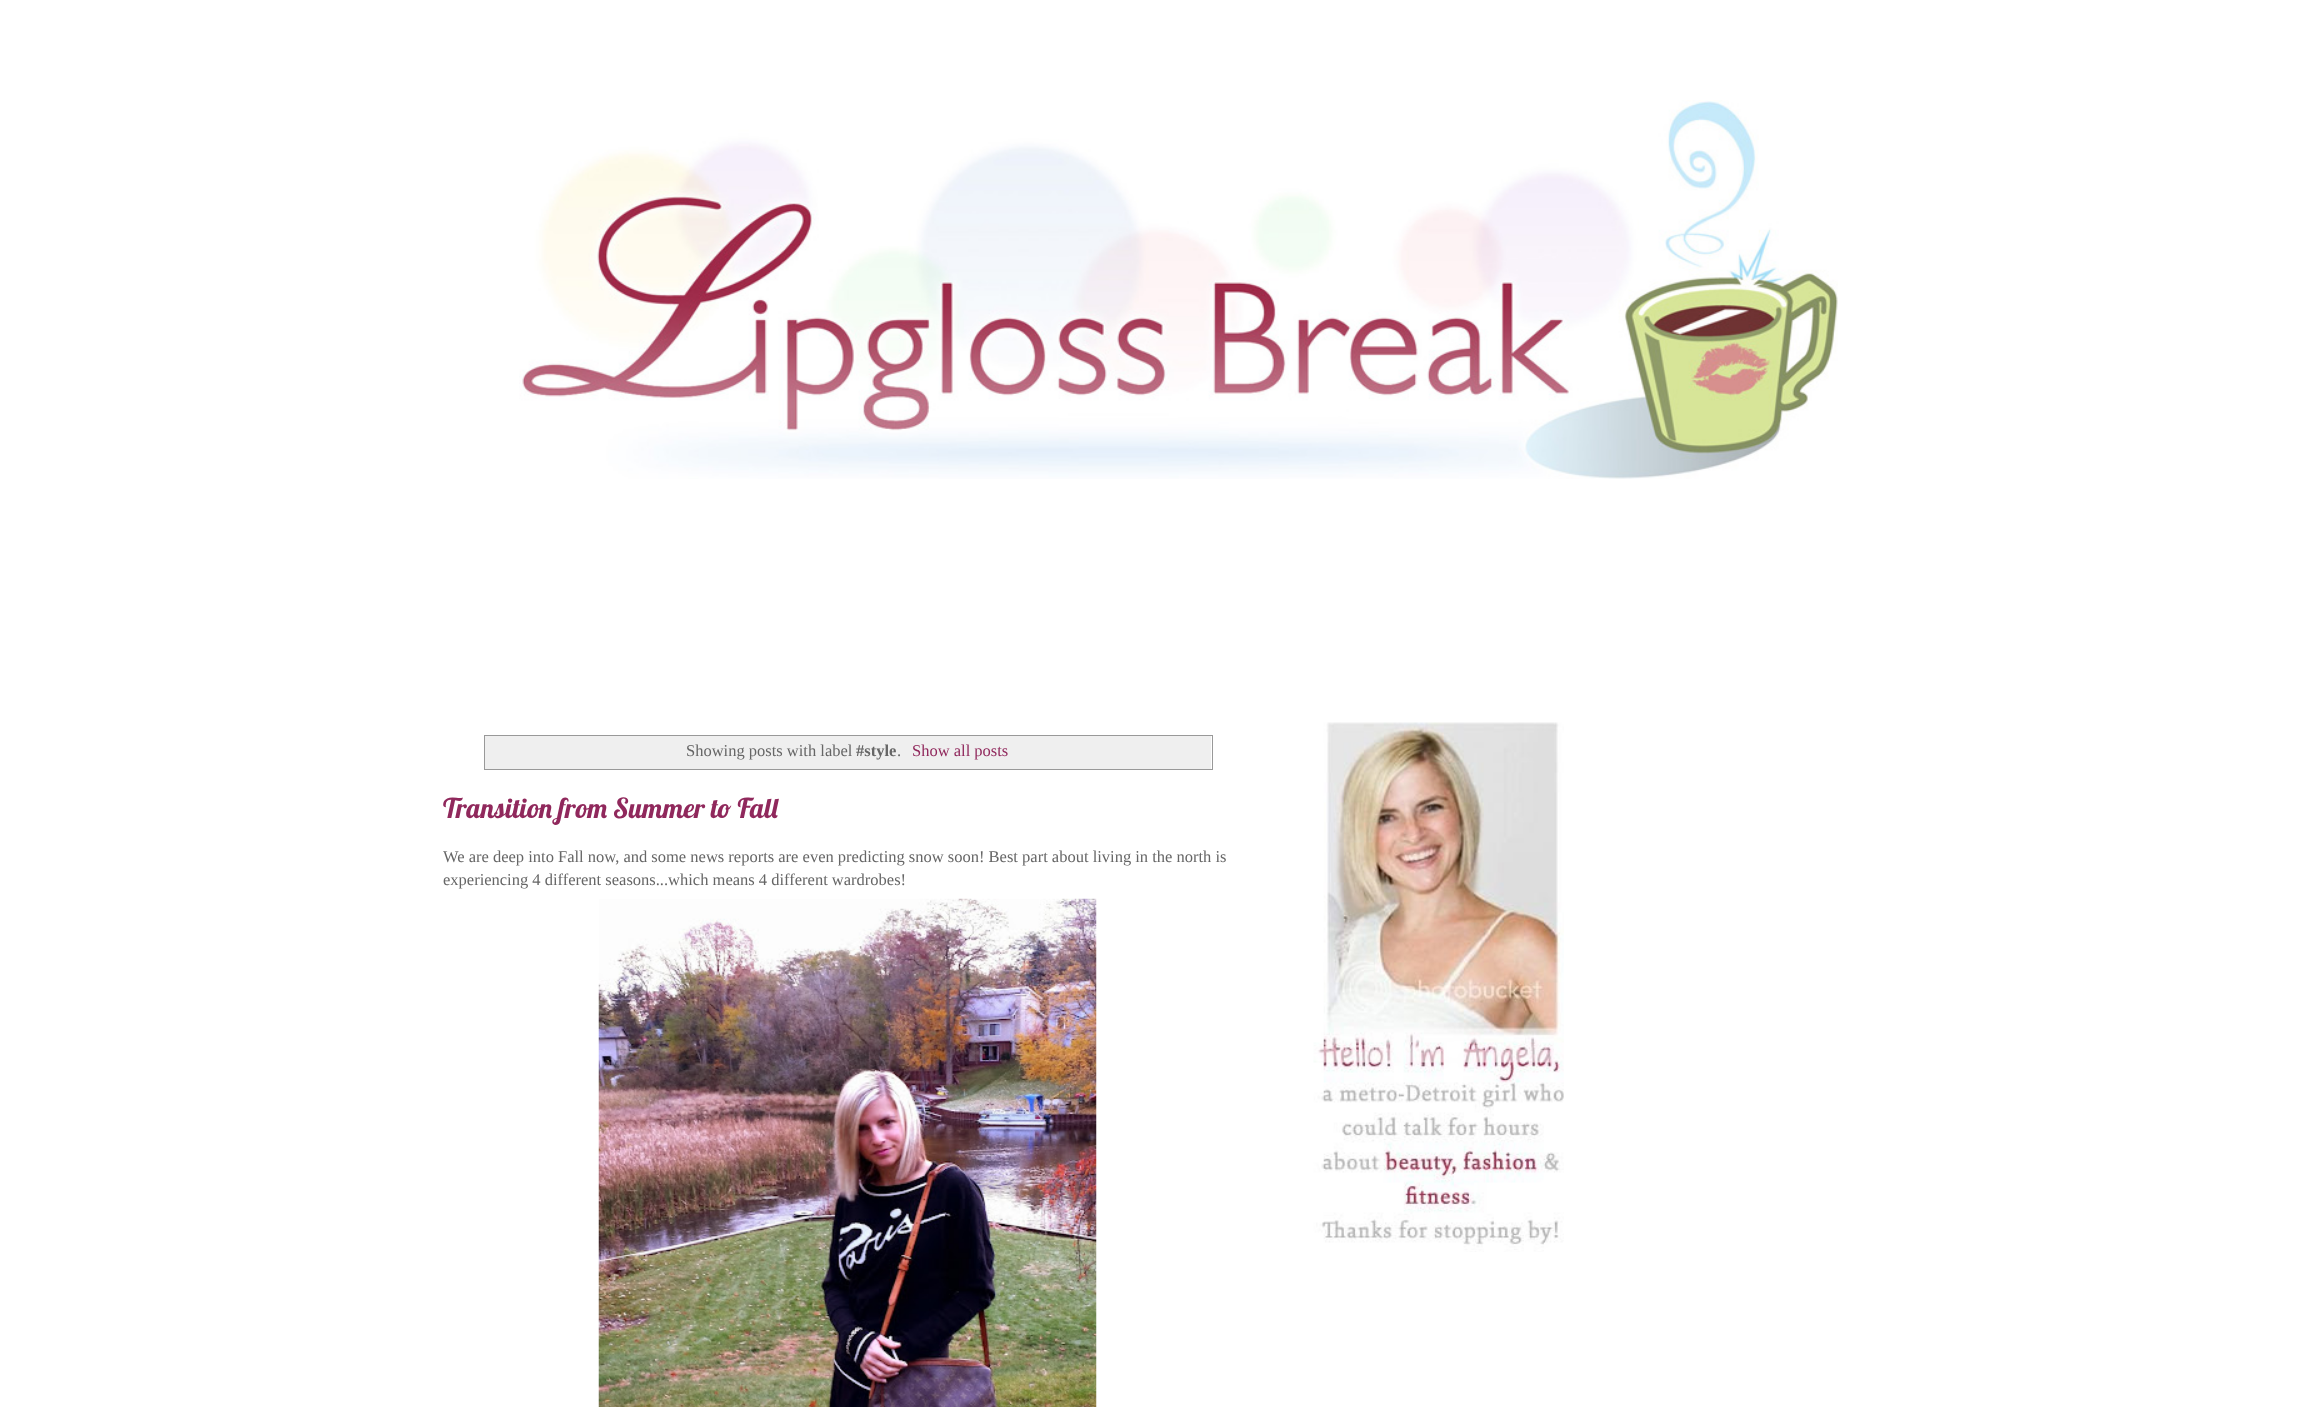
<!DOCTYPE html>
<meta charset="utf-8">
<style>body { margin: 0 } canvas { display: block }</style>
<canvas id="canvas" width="2318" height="1407"></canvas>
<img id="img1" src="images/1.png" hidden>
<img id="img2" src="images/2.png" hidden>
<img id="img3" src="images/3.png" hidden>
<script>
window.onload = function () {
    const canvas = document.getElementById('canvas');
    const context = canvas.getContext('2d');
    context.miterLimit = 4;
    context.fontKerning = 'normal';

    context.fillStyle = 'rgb(255, 255, 255)';
    context.fillRect(0, 0, 2318, 1407);
    context.drawImage(document.getElementById('img1'), 519, 100, 1319, 379);
    context.strokeStyle = 'rgb(153, 153, 153)';
    context.strokeRect(484.5, 735.5, 728, 34);
    context.fillStyle = 'rgb(239, 239, 239)';
    context.fillRect(485, 736, 726, 33);
    context.drawImage(document.getElementById('img2'), 598, 898, 499, 509);
    context.drawImage(document.getElementById('img3'), 1313, 722, 251, 530);
    context.font = '16.5px Liberation Serif';
    context.fillStyle = 'rgb(102, 102, 102)';
    context.fillText('Showing posts with label', 686, 756);
    context.font = 'bold 16.5px Liberation Serif';
    context.fillText('#style', 856, 756);
    context.font = '16.5px Liberation Serif';
    context.fillText('.', 897, 756);
    context.fillStyle = 'rgb(144, 40, 92)';
    context.fillText('Show all posts', 912, 756);
    context.font = '27.5px Lobster';
    context.fillText('Transition from Summer to Fall', 443, 818);
    context.font = '16.5px Liberation Serif';
    context.fillStyle = 'rgb(102, 102, 102)';
    context.fillText('We are deep into Fall now, and some news reports are even predicting snow soon! Best part about living in the north is', 443, 862);
    context.fillText('experiencing 4 different seasons...which means 4 different wardrobes!', 443, 885);
};
</script>
